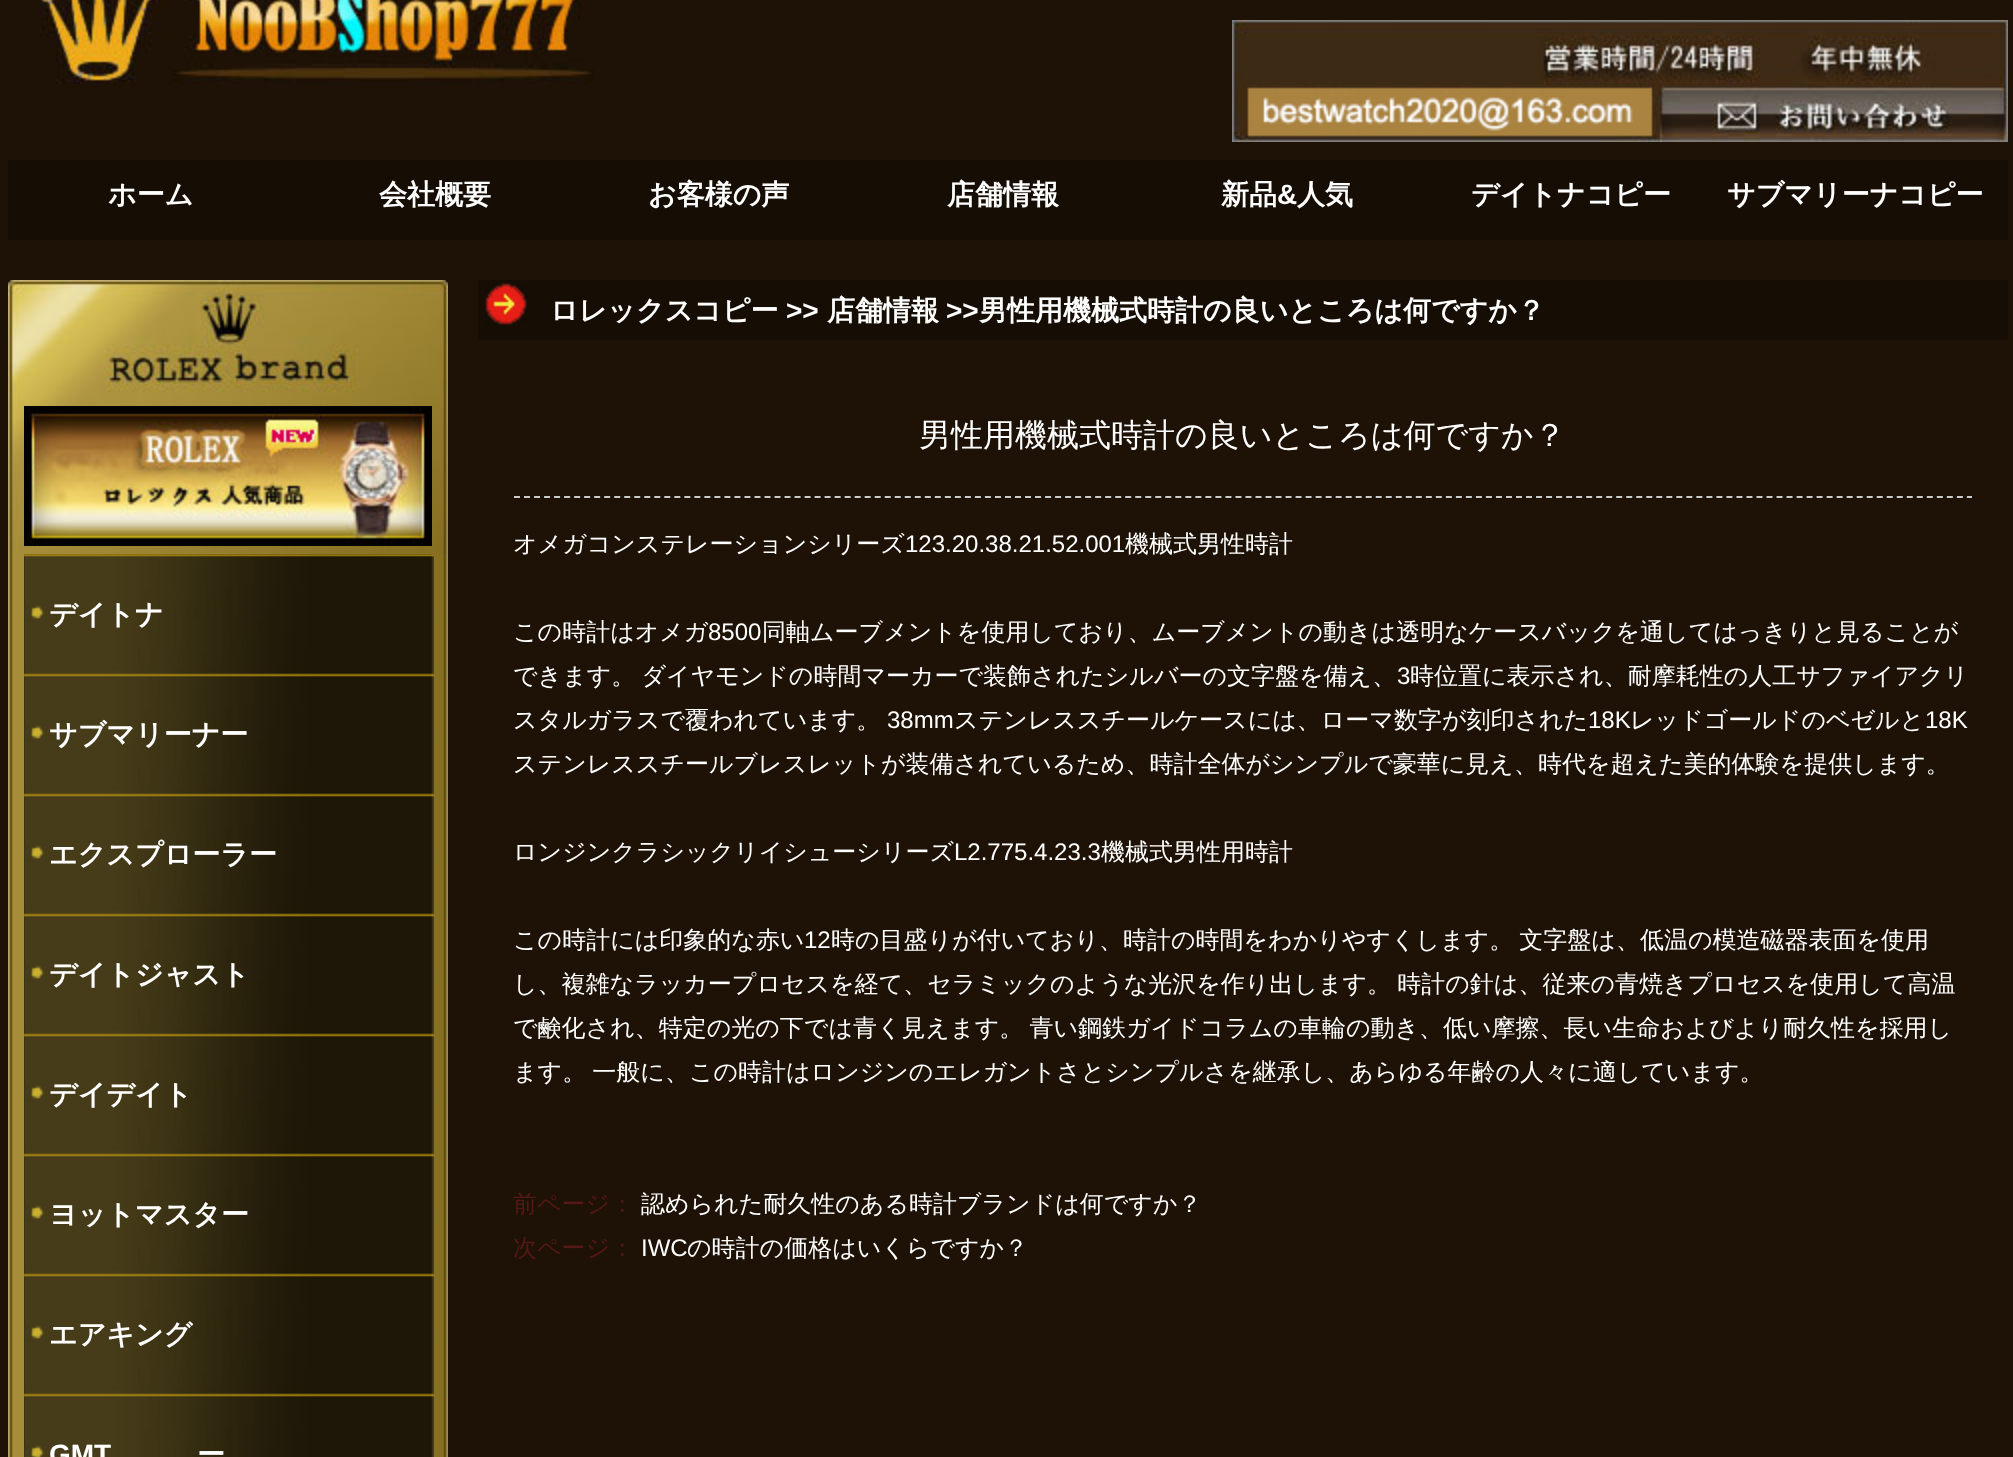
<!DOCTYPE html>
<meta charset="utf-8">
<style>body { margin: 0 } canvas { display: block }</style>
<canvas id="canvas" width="2013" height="1457"></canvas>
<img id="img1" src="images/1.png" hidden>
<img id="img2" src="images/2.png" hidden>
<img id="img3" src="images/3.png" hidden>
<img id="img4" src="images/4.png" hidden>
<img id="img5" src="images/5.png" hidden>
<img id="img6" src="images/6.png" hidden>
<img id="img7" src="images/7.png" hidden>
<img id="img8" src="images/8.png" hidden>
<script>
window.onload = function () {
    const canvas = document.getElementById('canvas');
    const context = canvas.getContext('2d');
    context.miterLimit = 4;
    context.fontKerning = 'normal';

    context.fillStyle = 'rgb(30, 18, 6)';
    context.fillRect(0, 0, 2013, 1457);
    context.drawImage(document.getElementById('img1'), 40, 0, 554, 84);
    context.drawImage(document.getElementById('img2'), 1232, 20, 776, 122);
    context.fillStyle = 'rgb(22, 13, 4)';
    context.fillRect(8, 160, 2000, 80);
    context.drawImage(document.getElementById('img3'), 8, 280, 440, 274);
    context.drawImage(document.getElementById('img4'), 24, 406, 408, 140);
    context.drawImage(document.getElementById('img5'), 8, 554, 440, 903);
    context.drawImage(document.getElementById('img6'), 24, 554, 410, 120);
    context.drawImage(document.getElementById('img6'), 24, 674, 410, 120);
    context.drawImage(document.getElementById('img6'), 24, 794, 410, 120);
    context.drawImage(document.getElementById('img6'), 24, 914, 410, 120);
    context.drawImage(document.getElementById('img6'), 24, 1034, 410, 120);
    context.drawImage(document.getElementById('img6'), 24, 1154, 410, 120);
    context.drawImage(document.getElementById('img6'), 24, 1274, 410, 120);
    context.drawImage(document.getElementById('img7'), 24, 1394, 410, 63);
    context.fillRect(478, 280, 1530, 60);
    context.drawImage(document.getElementById('img8'), 485, 283, 42, 42);
    context.beginPath();
    context.moveTo(514, 497);
    context.lineTo(1972, 497);
    context.strokeStyle = 'rgb(204, 204, 204)';
    context.lineWidth = 2;
    context.setLineDash([6, 4.02]);
    context.stroke();
    context.font = 'bold 28px WenQuanYi Zen Hei';
    context.fillStyle = 'rgb(255, 255, 255)';
    context.fillText('ホーム', 108, 204);
    context.fillText('会社概要', 379, 204);
    context.fillText('お客様の声', 648, 204);
    context.fillText('店舗情報', 947, 204);
    context.fillText('新品', 1221, 204);
    context.font = 'bold 28px Liberation Sans';
    context.fillText('&', 1277, 204);
    context.font = 'bold 28px WenQuanYi Zen Hei';
    context.fillText('人気', 1297, 204);
    context.fillText('デイトナコピー', 1471, 204);
    context.fillText('サブマリーナコピー', 1727, 204);
    context.fillText('デイトナ', 49, 624);
    context.fillText('サブマリーナー', 49, 744);
    context.fillText('エクスプローラー', 49, 864);
    context.fillText('デイトジャスト', 49, 984);
    context.fillText('デイデイト', 49, 1104);
    context.fillText('ヨットマスター', 49, 1224);
    context.fillText('エアキング', 49, 1344);
    context.font = 'bold 28px Liberation Sans';
    context.fillText('GMT', 49, 1464);
    context.font = 'bold 28px WenQuanYi Zen Hei';
    context.fillText('ー', 197, 1464);
    context.fillText('ロレックスコピー', 550, 320);
    context.font = 'bold 28px Liberation Sans';
    context.fillText('>>', 786, 320);
    context.font = 'bold 28px WenQuanYi Zen Hei';
    context.fillText('店舗情報', 827, 320);
    context.font = 'bold 28px Liberation Sans';
    context.fillText('>>', 946, 320);
    context.font = 'bold 28px WenQuanYi Zen Hei';
    context.fillText('男性用機械式時計の良いところは何ですか？', 979, 320);
    context.font = '500 32px WenQuanYi Zen Hei';
    context.fillText('男性用機械式時計の良いところは何ですか？', 919, 446);
    context.font = '500 24px WenQuanYi Zen Hei';
    context.fillText('オメガコンステレーションシリーズ', 513, 552);
    context.font = '24px Liberation Sans';
    context.fillText('123.20.38.21.52.001', 905, 552);
    context.font = '500 24px WenQuanYi Zen Hei';
    context.fillText('機械式男性時計', 1125, 552);
    context.fillText('この時計はオメガ', 513, 640);
    context.font = '24px Liberation Sans';
    context.fillText('8500', 708, 640);
    context.font = '500 24px WenQuanYi Zen Hei';
    context.fillText('同軸ムーブメントを使用しており、ムーブメントの動きは透明なケースバックを通してはっきりと見ることが', 762, 640);
    context.wordSpacing = '-1px';
    context.fillText('できます。 ダイヤモンドの時間マーカーで装飾されたシルバーの文字盤を備え、', 513, 684);
    context.wordSpacing = '0px';
    context.font = '24px Liberation Sans';
    context.fillText('3', 1397, 684);
    context.font = '500 24px WenQuanYi Zen Hei';
    context.fillText('時位置に表示され、耐摩耗性の人工サファイアクリ', 1410, 684);
    context.fillText('スタルガラスで覆われています。', 513, 728);
    context.font = '24px Liberation Sans';
    context.fillText('38mm', 887, 728);
    context.font = '500 24px WenQuanYi Zen Hei';
    context.fillText('ステンレススチールケースには、ローマ数字が刻印された', 954, 728);
    context.font = '24px Liberation Sans';
    context.fillText('18K', 1588, 728);
    context.font = '500 24px WenQuanYi Zen Hei';
    context.fillText('レッドゴールドのベゼルと', 1630, 728);
    context.font = '24px Liberation Sans';
    context.fillText('18K', 1925, 728);
    context.font = '500 24px WenQuanYi Zen Hei';
    context.fillText('ステンレススチールブレスレットが装備されているため、時計全体がシンプルで豪華に見え、時代を超えた美的体験を提供します。', 513, 772);
    context.fillText('ロンジンクラシックリイシューシリーズ', 513, 860);
    context.font = '24px Liberation Sans';
    context.fillText('L2.775.4.23.3', 954, 860);
    context.font = '500 24px WenQuanYi Zen Hei';
    context.fillText('機械式男性用時計', 1101, 860);
    context.fillText('この時計には印象的な赤い', 513, 948);
    context.font = '24px Liberation Sans';
    context.fillText('12', 804, 948);
    context.wordSpacing = '-1px';
    context.font = '500 24px WenQuanYi Zen Hei';
    context.fillText('時の目盛りが付いており、時計の時間をわかりやすくします。 文字盤は、低温の模造磁器表面を使用', 831, 948);
    context.fillText('し、複雑なラッカープロセスを経て、セラミックのような光沢を作り出します。 時計の針は、従来の青焼きプロセスを使用して高温', 513, 992);
    context.fillText('で鹸化され、特定の光の下では青く見えます。 青い鋼鉄ガイドコラムの車輪の動き、低い摩擦、長い生命およびより耐久性を採用し', 513, 1036);
    context.fillText('ます。 一般に、この時計はロンジンのエレガントさとシンプルさを継承し、あらゆる年齢の人々に適しています。', 513, 1080);
    context.wordSpacing = '0px';
    context.fillStyle = 'rgb(88, 23, 23)';
    context.fillText('前ページ：', 513, 1212);
    context.fillStyle = 'rgb(255, 255, 255)';
    context.fillText('認められた耐久性のある時計ブランドは何ですか？', 641, 1212);
    context.fillStyle = 'rgb(88, 23, 23)';
    context.fillText('次ページ：', 513, 1256);
    context.font = '24px Liberation Sans';
    context.fillStyle = 'rgb(255, 255, 255)';
    context.fillText('IWC', 641, 1256);
    context.font = '500 24px WenQuanYi Zen Hei';
    context.fillText('の時計の価格はいくらですか？', 687, 1256);
};
</script>
